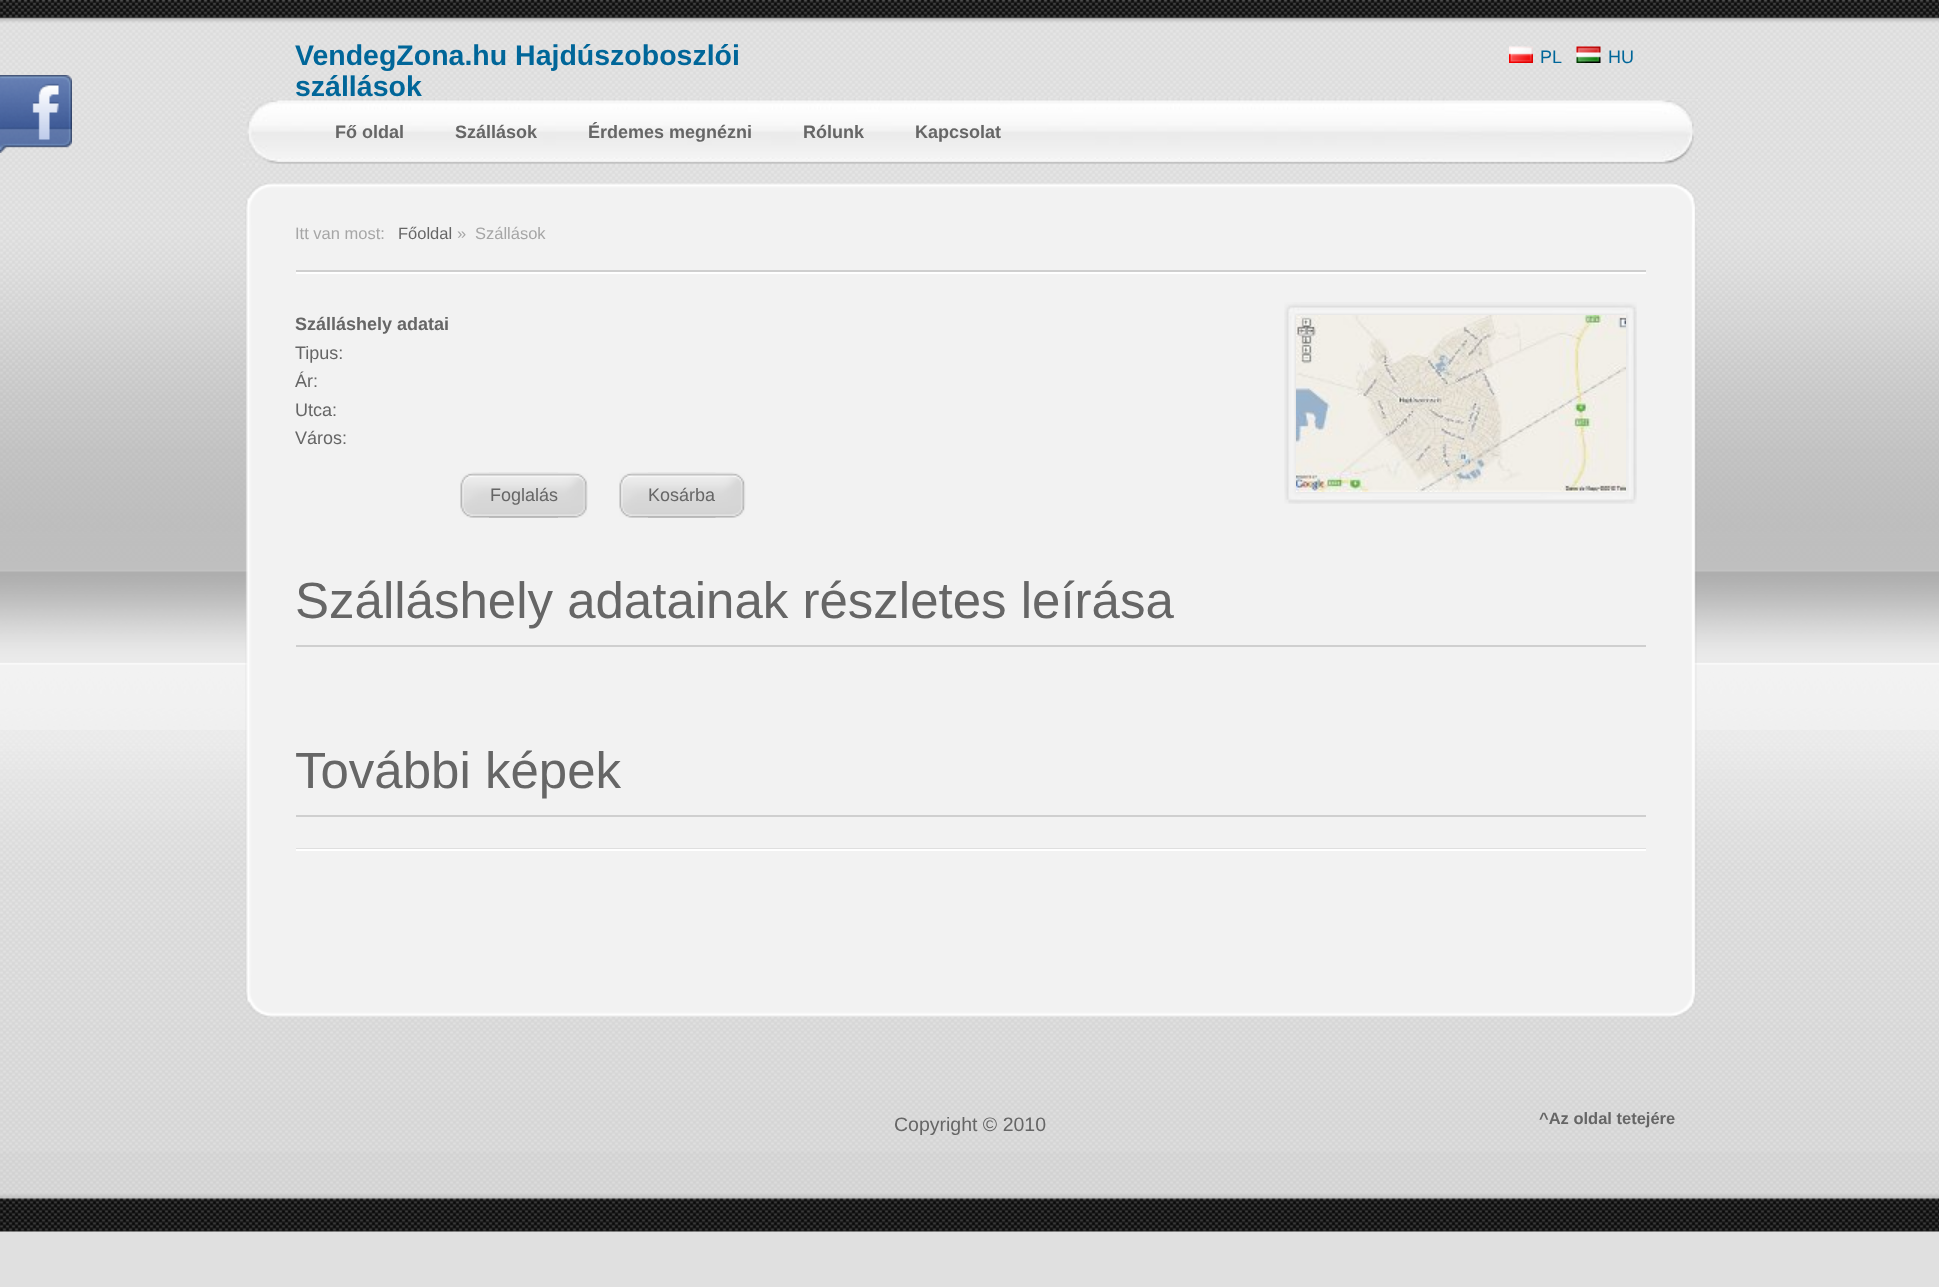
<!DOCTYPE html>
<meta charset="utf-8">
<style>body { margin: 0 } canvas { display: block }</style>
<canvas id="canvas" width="1939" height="1287"></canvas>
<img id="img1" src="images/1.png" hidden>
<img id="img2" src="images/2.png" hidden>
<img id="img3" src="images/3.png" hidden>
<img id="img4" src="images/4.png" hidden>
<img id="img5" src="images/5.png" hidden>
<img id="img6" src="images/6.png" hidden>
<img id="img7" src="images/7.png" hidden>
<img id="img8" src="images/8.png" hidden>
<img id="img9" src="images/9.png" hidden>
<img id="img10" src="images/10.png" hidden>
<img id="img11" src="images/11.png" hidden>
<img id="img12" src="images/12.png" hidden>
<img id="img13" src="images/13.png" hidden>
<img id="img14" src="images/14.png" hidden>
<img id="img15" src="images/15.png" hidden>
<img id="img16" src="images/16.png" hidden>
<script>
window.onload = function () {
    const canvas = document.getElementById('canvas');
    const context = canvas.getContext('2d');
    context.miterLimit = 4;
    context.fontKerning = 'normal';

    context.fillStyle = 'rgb(224, 224, 224)';
    context.fillRect(0, 0, 1939, 1287);
    context.drawImage(document.getElementById('img1'), 0, 0, 1939, 1152);
    context.drawImage(document.getElementById('img2'), 0, 75, 72, 78);
    context.drawImage(document.getElementById('img3'), 0, 730, 1939, 502);
    context.drawImage(document.getElementById('img4'), 1509, 46, 24, 17);
    context.drawImage(document.getElementById('img5'), 1576, 46, 25, 17);
    context.drawImage(document.getElementById('img6'), 1444, 98, 254, 67);
    context.drawImage(document.getElementById('img7'), 243, 97, 1202, 68);
    context.drawImage(document.getElementById('img8'), 245, 183, 1451, 42);
    context.drawImage(document.getElementById('img9'), 245, 225, 1452, 750);
    context.fillStyle = 'rgb(207, 207, 207)';
    context.fillRect(296, 270, 1350, 2);
    context.fillStyle = 'rgb(255, 255, 255)';
    context.fillRect(296, 272, 1350, 2);
    context.drawImage(document.getElementById('img10'), 460, 472, 98, 46);
    context.drawImage(document.getElementById('img11'), 489, 472, 99, 46);
    context.drawImage(document.getElementById('img12'), 619, 472, 97, 46);
    context.drawImage(document.getElementById('img13'), 648, 472, 98, 46);
    context.drawImage(document.getElementById('img14'), 1284, 302, 353, 202);
    context.drawImage(document.getElementById('img15'), 1296, 315, 330, 177);
    context.fillStyle = 'rgb(207, 207, 207)';
    context.fillRect(296, 645, 1350, 2);
    context.fillRect(296, 815, 1350, 2);
    context.fillStyle = 'rgb(223, 223, 223)';
    context.fillRect(296, 848, 1350, 1);
    context.fillStyle = 'rgb(255, 255, 255)';
    context.fillRect(296, 849, 1350, 2);
    context.drawImage(document.getElementById('img16'), 245, 975, 1451, 42);
    context.font = 'bold 28.5px Liberation Sans';
    context.fillStyle = 'rgb(0, 102, 153)';
    context.fillText('VendegZona.hu Hajdúszoboszlói', 295, 65);
    context.fillText('szállások', 295, 96);
    context.font = '18px Liberation Sans';
    context.fillText('PL', 1540, 63);
    context.fillText('HU', 1608, 63);
    context.font = 'bold 18px Liberation Sans';
    context.fillStyle = 'rgb(102, 102, 102)';
    context.fillText('Fő oldal', 335, 138);
    context.fillText('Szállások', 455, 138);
    context.fillText('Érdemes megnézni', 588, 138);
    context.fillText('Rólunk', 803, 138);
    context.fillText('Kapcsolat', 915, 138);
    context.font = '16.5px Liberation Sans';
    context.fillStyle = 'rgb(166, 166, 166)';
    context.fillText('Itt van most:', 295, 239);
    context.fillStyle = 'rgb(102, 102, 102)';
    context.fillText('Főoldal', 398, 239);
    context.fillStyle = 'rgb(166, 166, 166)';
    context.fillText('»', 457, 239);
    context.fillText('Szállások', 475, 239);
    context.font = 'bold 18px Liberation Sans';
    context.fillStyle = 'rgb(102, 102, 102)';
    context.fillText('Szálláshely adatai', 295, 330);
    context.font = '18px Liberation Sans';
    context.fillText('Tipus:', 295, 359);
    context.fillText('Ár:', 295, 387);
    context.fillText('Utca:', 295, 416);
    context.fillText('Város:', 295, 444);
    context.fillText('Foglalás', 490, 501);
    context.fillText('Kosárba', 648, 501);
    context.font = '51px Liberation Sans';
    context.fillText('Szálláshely adatainak részletes leírása', 295, 618);
    context.fillText('További képek', 295, 788);
    context.font = '19.5px Liberation Sans';
    context.fillText('Copyright © 2010', 894, 1131);
    context.font = 'bold 16.5px Liberation Sans';
    context.fillText('^Az oldal tetejére', 1539, 1124);
};
</script>
